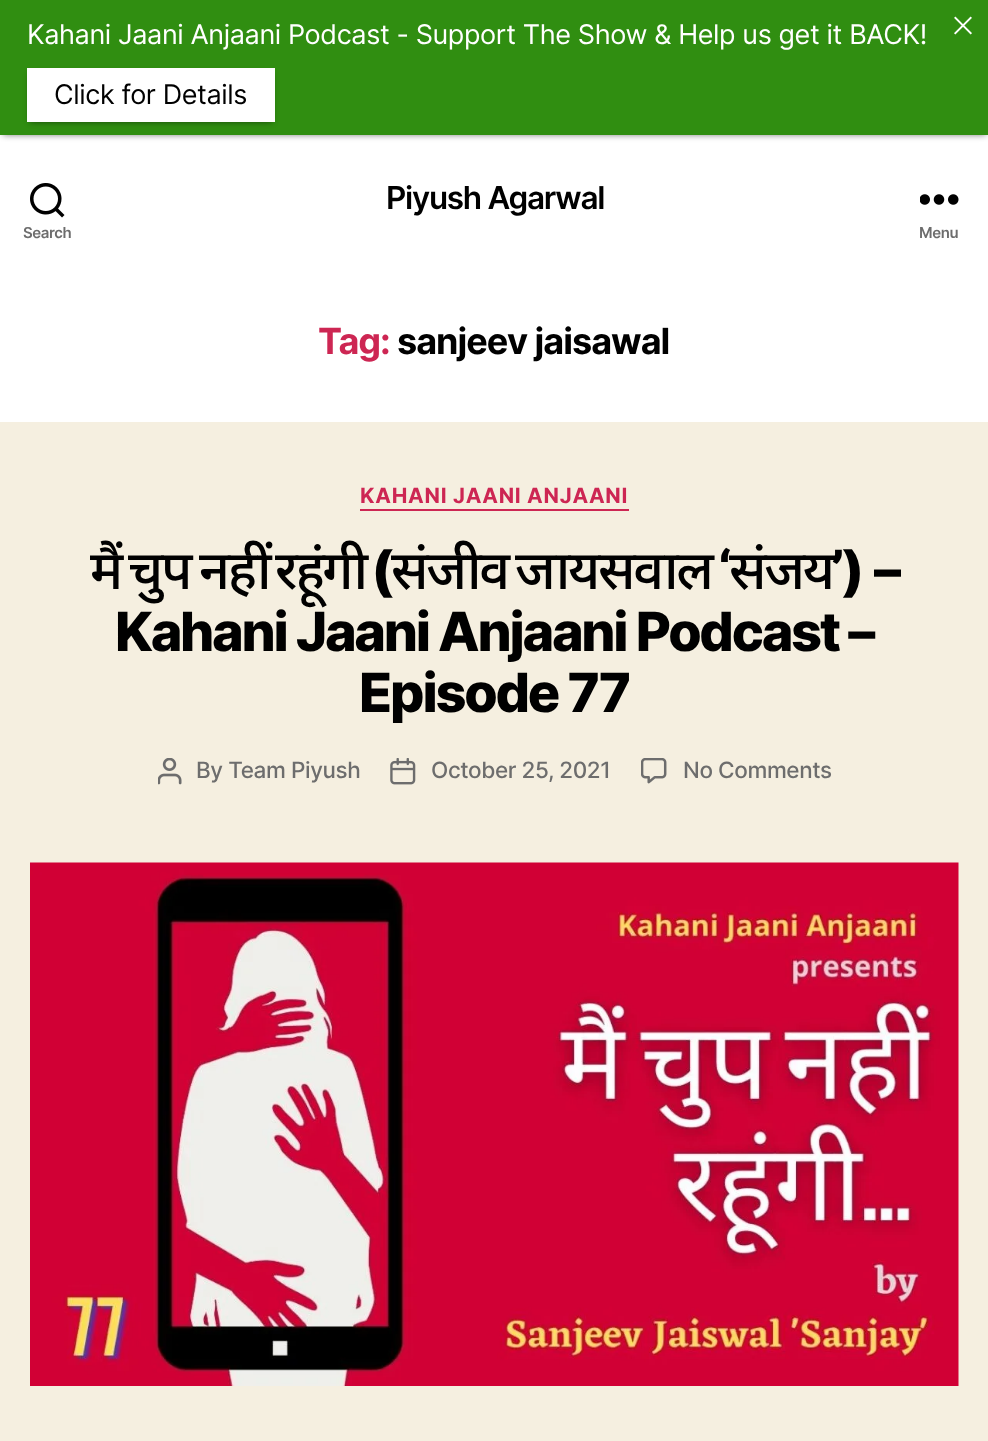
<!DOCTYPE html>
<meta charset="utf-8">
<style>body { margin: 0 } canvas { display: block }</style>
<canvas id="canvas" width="988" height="1441"></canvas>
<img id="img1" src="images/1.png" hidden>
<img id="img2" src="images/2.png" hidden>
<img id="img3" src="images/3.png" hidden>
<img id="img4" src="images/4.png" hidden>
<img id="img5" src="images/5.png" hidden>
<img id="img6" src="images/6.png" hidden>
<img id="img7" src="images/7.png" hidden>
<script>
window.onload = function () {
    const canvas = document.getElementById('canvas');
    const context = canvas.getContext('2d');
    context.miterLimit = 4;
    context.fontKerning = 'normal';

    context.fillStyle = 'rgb(245, 239, 224)';
    context.fillRect(0, 0, 988, 1441);
    context.fillStyle = 'rgb(255, 255, 255)';
    context.fillRect(0, 135, 988, 287);
    context.fillStyle = 'rgba(0, 0, 0, 0.5)';
    context.filter = 'blur(3px)';
    context.beginPath();
    context.rect(3, 6, 983, 129);
    context.fill();
    context.filter = 'none';
    context.fillStyle = 'rgb(48, 142, 17)';
    context.fillRect(0, 0, 988, 135);
    context.fillStyle = 'rgba(0, 0, 0, 0.5)';
    context.filter = 'blur(3px)';
    context.beginPath();
    context.rect(30, 74, 242, 48);
    context.fill();
    context.filter = 'none';
    context.fillStyle = 'rgb(255, 255, 255)';
    context.fillRect(27, 68, 248, 54);
    context.drawImage(document.getElementById('img1'), 954, 16, 18, 19);
    context.drawImage(document.getElementById('img2'), 30, 183, 35, 35);
    context.drawImage(document.getElementById('img3'), 920, 194, 39, 11);
    context.fillStyle = 'rgb(205, 38, 83)';
    context.fillRect(360, 509, 269, 2);
    context.drawImage(document.getElementById('img4'), 158, 758, 24, 27);
    context.drawImage(document.getElementById('img5'), 390, 758, 26, 27);
    context.drawImage(document.getElementById('img6'), 641, 758, 26, 26);
    context.drawImage(document.getElementById('img7'), 30, 862, 929, 524);
    context.letterSpacing = '-0.4px';
    context.font = '27px Inter';
    context.fillStyle = 'rgb(255, 255, 255)';
    context.fillText('Kahani Jaani Anjaani Podcast - Support The Show & Help us get it BACK!', 27, 44);
    context.fillStyle = 'rgb(0, 0, 0)';
    context.fillText('Click for Details', 54, 104);
    context.letterSpacing = '-1.25px';
    context.font = '600 31.5px Inter';
    context.fillText('Piyush Agarwal', 386, 209);
    context.letterSpacing = '-0.4px';
    context.font = '600 15px Inter';
    context.fillStyle = 'rgb(109, 109, 109)';
    context.fillText('Search', 23, 238);
    context.fillText('Menu', 919, 238);
    context.letterSpacing = '-1px';
    context.font = 'bold 36px Inter';
    context.fillStyle = 'rgb(205, 38, 83)';
    context.fillText('Tag:', 318, 354);
    context.fillStyle = 'rgb(0, 0, 0)';
    context.fillText('sanjeev jaisawal', 397, 354);
    context.letterSpacing = '0.75px';
    context.font = 'bold 21px Inter';
    context.fillStyle = 'rgb(205, 38, 83)';
    context.fillText('KAHANI JAANI ANJAANI', 360, 503);
    context.letterSpacing = '-2.25px';
    context.font = '500 54px Noto Sans';
    context.fillStyle = 'rgb(0, 0, 0)';
    context.fillText('मैं', 90, 589);
    context.fillText('नहीं', 199, 589);
    context.fillText('रहूंगी', 275, 589);
    context.fillText('चुप', 128, 589);
    context.font = '800 54px Inter';
    context.fillText('(', 371, 589);
    context.font = '500 54px Noto Sans';
    context.fillText('संजीव', 391, 589);
    context.fillText('जायसवाल', 515, 589);
    context.font = '800 54px Inter';
    context.fillText('‘', 718, 589);
    context.font = '500 54px Noto Sans';
    context.fillText('संजय', 729, 589);
    context.wordSpacing = '2px';
    context.font = '800 54px Inter';
    context.fillText('’) –', 831, 589);
    context.wordSpacing = '0px';
    context.fillText('Kahani Jaani Anjaani Podcast –', 115, 651);
    context.fillText('Episode 77', 359, 712);
    context.letterSpacing = '-0.4px';
    context.font = '500 22.5px Inter';
    context.fillStyle = 'rgb(109, 109, 109)';
    context.fillText('By Team Piyush', 196, 778);
    context.fillText('October 25, 2021', 431, 778);
    context.fillText('No Comments', 683, 778);
};
</script>
